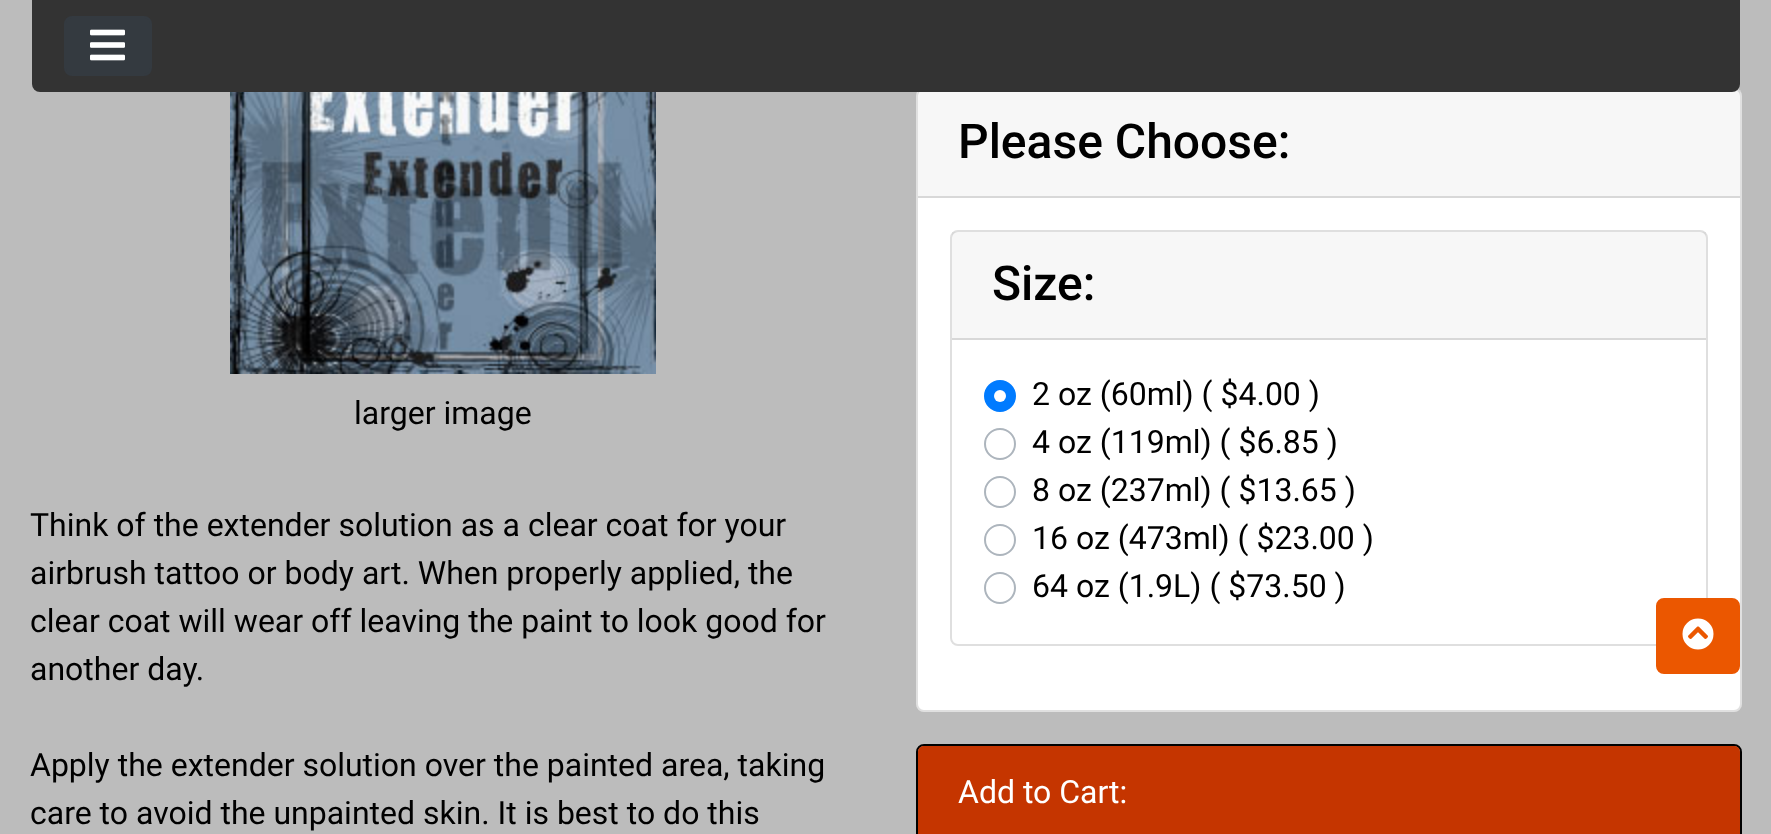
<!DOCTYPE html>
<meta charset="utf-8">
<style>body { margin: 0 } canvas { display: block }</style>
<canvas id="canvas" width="1771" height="834"></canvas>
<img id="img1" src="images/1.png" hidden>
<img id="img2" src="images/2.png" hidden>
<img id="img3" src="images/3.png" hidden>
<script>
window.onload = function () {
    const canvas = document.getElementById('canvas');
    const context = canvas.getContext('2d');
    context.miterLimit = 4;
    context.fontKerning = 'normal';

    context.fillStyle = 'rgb(188, 188, 188)';
    context.fillRect(0, 0, 1771, 834);
    context.fillStyle = 'rgb(255, 255, 255)';
    context.beginPath();
    context.roundRect(916, 88, 826, 624, 8);
    context.fill();
    context.beginPath();
    context.roundRect(917, 89, 824, 622, 7);
    context.strokeStyle = 'rgba(0, 0, 0, 0.12)';
    context.lineWidth = 2;
    context.stroke();
    context.fillStyle = 'rgba(0, 0, 0, 0.03)';
    context.fillRect(918, 90, 822, 106);
    context.fillStyle = 'rgb(51, 51, 51)';
    context.beginPath();
    context.roundRect(32, 0, 1708, 92, [0, 0, 8, 8]);
    context.fill();
    context.fillStyle = 'rgb(52, 58, 64)';
    context.beginPath();
    context.roundRect(65, 17, 86, 58, 7);
    context.fill();
    context.strokeStyle = 'rgb(52, 58, 64)';
    context.stroke();
    context.drawImage(document.getElementById('img1'), 90, 29, 35, 32);
    context.drawImage(document.getElementById('img2'), 230, 92, 426, 282);
    context.fillStyle = 'rgb(216, 216, 216)';
    context.fillRect(918, 196, 822, 2);
    context.beginPath();
    context.roundRect(951, 231, 756, 414, 7);
    context.strokeStyle = 'rgb(223, 223, 223)';
    context.stroke();
    context.fillStyle = 'rgba(0, 0, 0, 0.03)';
    context.fillRect(952, 232, 754, 106);
    context.fillStyle = 'rgb(216, 216, 216)';
    context.fillRect(952, 338, 754, 2);
    context.fillStyle = 'rgb(0, 123, 255)';
    context.beginPath();
    context.arc(1000, 396, 15, 0, 2 * Math.PI);
    context.fill();
    context.strokeStyle = 'rgb(0, 123, 255)';
    context.stroke();
    context.fillStyle = 'rgb(255, 255, 255)';
    context.beginPath();
    context.arc(1000, 396, 6, 0, 2 * Math.PI);
    context.fill();
    context.beginPath();
    context.arc(1000, 444, 15, 0, 2 * Math.PI);
    context.strokeStyle = 'rgb(173, 181, 189)';
    context.stroke();
    context.beginPath();
    context.arc(1000, 492, 15, 0, 2 * Math.PI);
    context.stroke();
    context.beginPath();
    context.arc(1000, 540, 15, 0, 2 * Math.PI);
    context.stroke();
    context.beginPath();
    context.arc(1000, 588, 15, 0, 2 * Math.PI);
    context.stroke();
    context.beginPath();
    context.roundRect(917, 745, 824, 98, 7);
    context.strokeStyle = 'rgb(0, 0, 0)';
    context.stroke();
    context.fillStyle = 'rgb(197, 53, 0)';
    context.beginPath();
    context.moveTo(924, 746);
    context.lineTo(1734, 746);
    context.bezierCurveTo(1737.5, 746, 1740, 748.5, 1740, 752);
    context.lineTo(1740, 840);
    context.lineTo(918, 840);
    context.lineTo(918, 752);
    context.bezierCurveTo(918, 748.5, 920.5, 746, 924, 746);
    context.closePath();
    context.fill();
    context.fillStyle = 'rgb(235, 87, 0)';
    context.beginPath();
    context.roundRect(1657, 599, 82, 74, 7);
    context.fill();
    context.strokeStyle = 'rgb(235, 87, 0)';
    context.stroke();
    context.drawImage(document.getElementById('img3'), 1682, 618, 32, 32);
    context.font = '32px Roboto';
    context.fillStyle = 'rgb(0, 0, 0)';
    context.fillText('larger image', 354, 424);
    context.fillText('Think of the extender solution as a clear coat for your', 30, 536);
    context.fillText('airbrush tattoo or body art. When properly applied, the', 30, 584);
    context.fillText('clear coat will wear off leaving the paint to look good for', 30, 632);
    context.fillText('another day.', 30, 680);
    context.fillText('Apply the extender solution over the painted area, taking', 30, 776);
    context.fillText('care to avoid the unpainted skin. It is best to do this', 30, 824);
    context.font = '500 48px Roboto';
    context.fillText('Please Choose:', 958, 158);
    context.fillText('Size:', 992, 300);
    context.font = '32px Roboto';
    context.fillText('2 oz (60ml) ( $4.00 )', 1032, 405);
    context.fillText('4 oz (119ml) ( $6.85 )', 1032, 453);
    context.fillText('8 oz (237ml) ( $13.65 )', 1032, 501);
    context.fillText('16 oz (473ml) ( $23.00 )', 1032, 549);
    context.fillText('64 oz (1.9L) ( $73.50 )', 1032, 597);
    context.fillStyle = 'rgb(255, 255, 255)';
    context.fillText('Add to Cart:', 958, 803);
};
</script>
